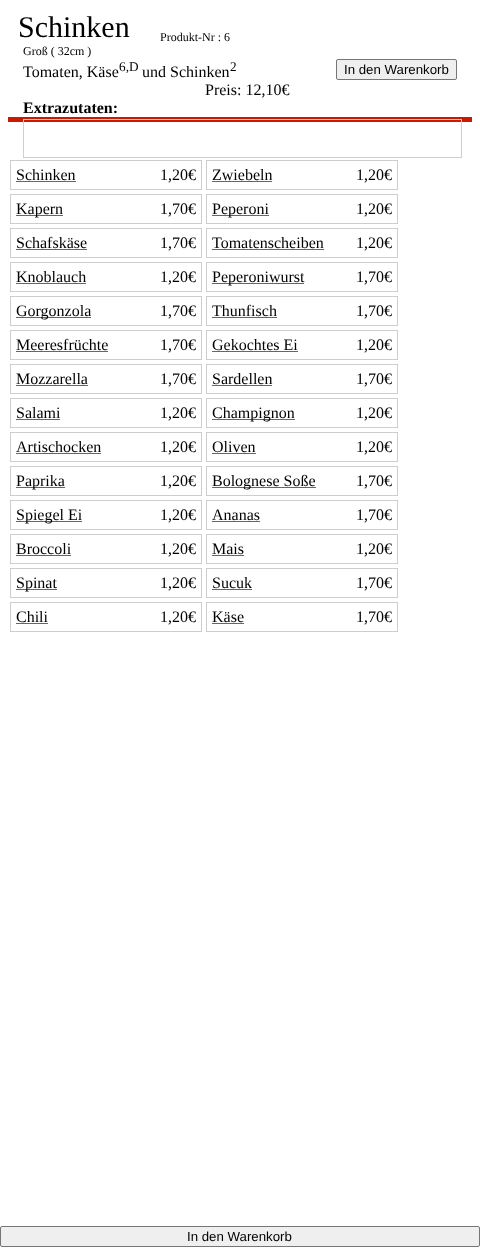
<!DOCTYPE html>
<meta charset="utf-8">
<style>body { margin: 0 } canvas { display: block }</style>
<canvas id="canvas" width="480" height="1257"></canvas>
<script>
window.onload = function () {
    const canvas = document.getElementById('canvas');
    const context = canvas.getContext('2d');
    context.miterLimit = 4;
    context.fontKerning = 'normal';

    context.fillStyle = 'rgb(255, 255, 255)';
    context.fillRect(0, 0, 480, 1257);
    context.fillStyle = 'rgb(202, 26, 0)';
    context.fillRect(8, 117, 464, 5);
    context.fillStyle = 'rgb(239, 239, 239)';
    context.beginPath();
    context.roundRect(336.5, 59.5, 120, 20, 1.5);
    context.fill();
    context.strokeStyle = 'rgb(118, 118, 118)';
    context.stroke();
    context.strokeStyle = 'rgb(206, 206, 206)';
    context.strokeRect(23.5, 119.5, 438, 38);
    context.strokeRect(10.5, 160.5, 191, 29);
    context.fillStyle = 'rgb(102, 102, 102)';
    context.fillRect(16, 181, 60, 1);
    context.strokeRect(206.5, 160.5, 191, 29);
    context.fillRect(212, 181, 60, 1);
    context.strokeRect(10.5, 194.5, 191, 29);
    context.fillRect(16, 215, 47, 1);
    context.strokeRect(206.5, 194.5, 191, 29);
    context.fillRect(212, 215, 57, 1);
    context.strokeRect(10.5, 228.5, 191, 29);
    context.fillRect(16, 249, 71, 1);
    context.strokeRect(206.5, 228.5, 191, 29);
    context.fillRect(212, 249, 112, 1);
    context.strokeRect(10.5, 262.5, 191, 29);
    context.fillRect(16, 283, 70, 1);
    context.strokeRect(206.5, 262.5, 191, 29);
    context.fillRect(212, 283, 92, 1);
    context.strokeRect(10.5, 296.5, 191, 29);
    context.fillRect(16, 317, 75, 1);
    context.strokeRect(206.5, 296.5, 191, 29);
    context.fillRect(212, 317, 65, 1);
    context.strokeRect(10.5, 330.5, 191, 29);
    context.fillRect(16, 351, 92, 1);
    context.strokeRect(206.5, 330.5, 191, 29);
    context.fillRect(212, 351, 86, 1);
    context.strokeRect(10.5, 364.5, 191, 29);
    context.fillRect(16, 385, 72, 1);
    context.strokeRect(206.5, 364.5, 191, 29);
    context.fillRect(212, 385, 60, 1);
    context.strokeRect(10.5, 398.5, 191, 29);
    context.fillRect(16, 419, 44, 1);
    context.strokeRect(206.5, 398.5, 191, 29);
    context.fillRect(212, 419, 83, 1);
    context.strokeRect(10.5, 432.5, 191, 29);
    context.fillRect(16, 453, 85, 1);
    context.strokeRect(206.5, 432.5, 191, 29);
    context.fillRect(212, 453, 44, 1);
    context.strokeRect(10.5, 466.5, 191, 29);
    context.fillRect(16, 487, 49, 1);
    context.strokeRect(206.5, 466.5, 191, 29);
    context.fillRect(212, 487, 104, 1);
    context.strokeRect(10.5, 500.5, 191, 29);
    context.fillRect(16, 521, 66, 1);
    context.strokeRect(206.5, 500.5, 191, 29);
    context.fillRect(212, 521, 48, 1);
    context.strokeRect(10.5, 534.5, 191, 29);
    context.fillRect(16, 555, 55, 1);
    context.strokeRect(206.5, 534.5, 191, 29);
    context.fillRect(212, 555, 32, 1);
    context.strokeRect(10.5, 568.5, 191, 29);
    context.fillRect(16, 589, 41, 1);
    context.strokeRect(206.5, 568.5, 191, 29);
    context.fillRect(212, 589, 40, 1);
    context.strokeRect(10.5, 602.5, 191, 29);
    context.fillRect(16, 623, 32, 1);
    context.strokeRect(206.5, 602.5, 191, 29);
    context.fillRect(212, 623, 32, 1);
    context.fillStyle = 'rgb(239, 239, 239)';
    context.beginPath();
    context.roundRect(0.5, 1226.5, 479, 20, 1.5);
    context.fill();
    context.strokeStyle = 'rgb(118, 118, 118)';
    context.stroke();
    context.font = '30px Liberation Serif';
    context.fillStyle = 'rgb(0, 0, 0)';
    context.fillText('Schinken', 18, 37);
    context.font = '12px Liberation Serif';
    context.fillText('Groß ( 32cm )', 23, 55);
    context.fillText('Produkt-Nr : 6', 160, 41);
    context.font = '16px Liberation Serif';
    context.fillText('Tomaten, Käse', 23, 77);
    context.font = '13.25px Liberation Serif';
    context.fillText('6,D', 119, 71);
    context.font = '16px Liberation Serif';
    context.fillText('und Schinken', 142, 77);
    context.font = '13.25px Liberation Serif';
    context.fillText('2', 230, 71);
    context.font = '13.25px Liberation Sans';
    context.fillText('In den Warenkorb', 344, 74);
    context.font = '16px Liberation Serif';
    context.fillText('Preis: 12,10€', 205, 95);
    context.font = 'bold 16px Liberation Serif';
    context.fillText('Extrazutaten:', 23, 113);
    context.font = '16px Liberation Serif';
    context.fillText('Schinken', 16, 180);
    context.fillText('1,20€', 160, 180);
    context.fillText('Zwiebeln', 212, 180);
    context.fillText('1,20€', 356, 180);
    context.fillText('Kapern', 16, 214);
    context.fillText('1,70€', 160, 214);
    context.fillText('Peperoni', 212, 214);
    context.fillText('1,20€', 356, 214);
    context.fillText('Schafskäse', 16, 248);
    context.fillText('1,70€', 160, 248);
    context.fillText('Tomatenscheiben', 212, 248);
    context.fillText('1,20€', 356, 248);
    context.fillText('Knoblauch', 16, 282);
    context.fillText('1,20€', 160, 282);
    context.fillText('Peperoniwurst', 212, 282);
    context.fillText('1,70€', 356, 282);
    context.fillText('Gorgonzola', 16, 316);
    context.fillText('1,70€', 160, 316);
    context.fillText('Thunfisch', 212, 316);
    context.fillText('1,70€', 356, 316);
    context.fillText('Meeresfrüchte', 16, 350);
    context.fillText('1,70€', 160, 350);
    context.fillText('Gekochtes Ei', 212, 350);
    context.fillText('1,20€', 356, 350);
    context.fillText('Mozzarella', 16, 384);
    context.fillText('1,70€', 160, 384);
    context.fillText('Sardellen', 212, 384);
    context.fillText('1,70€', 356, 384);
    context.fillText('Salami', 16, 418);
    context.fillText('1,20€', 160, 418);
    context.fillText('Champignon', 212, 418);
    context.fillText('1,20€', 356, 418);
    context.fillText('Artischocken', 16, 452);
    context.fillText('1,20€', 160, 452);
    context.fillText('Oliven', 212, 452);
    context.fillText('1,20€', 356, 452);
    context.fillText('Paprika', 16, 486);
    context.fillText('1,20€', 160, 486);
    context.fillText('Bolognese Soße', 212, 486);
    context.fillText('1,70€', 356, 486);
    context.fillText('Spiegel Ei', 16, 520);
    context.fillText('1,20€', 160, 520);
    context.fillText('Ananas', 212, 520);
    context.fillText('1,70€', 356, 520);
    context.fillText('Broccoli', 16, 554);
    context.fillText('1,20€', 160, 554);
    context.fillText('Mais', 212, 554);
    context.fillText('1,20€', 356, 554);
    context.fillText('Spinat', 16, 588);
    context.fillText('1,20€', 160, 588);
    context.fillText('Sucuk', 212, 588);
    context.fillText('1,70€', 356, 588);
    context.fillText('Chili', 16, 622);
    context.fillText('1,20€', 160, 622);
    context.fillText('Käse', 212, 622);
    context.fillText('1,70€', 356, 622);
    context.font = '13.25px Liberation Sans';
    context.fillText('In den Warenkorb', 187, 1241);
};
</script>
